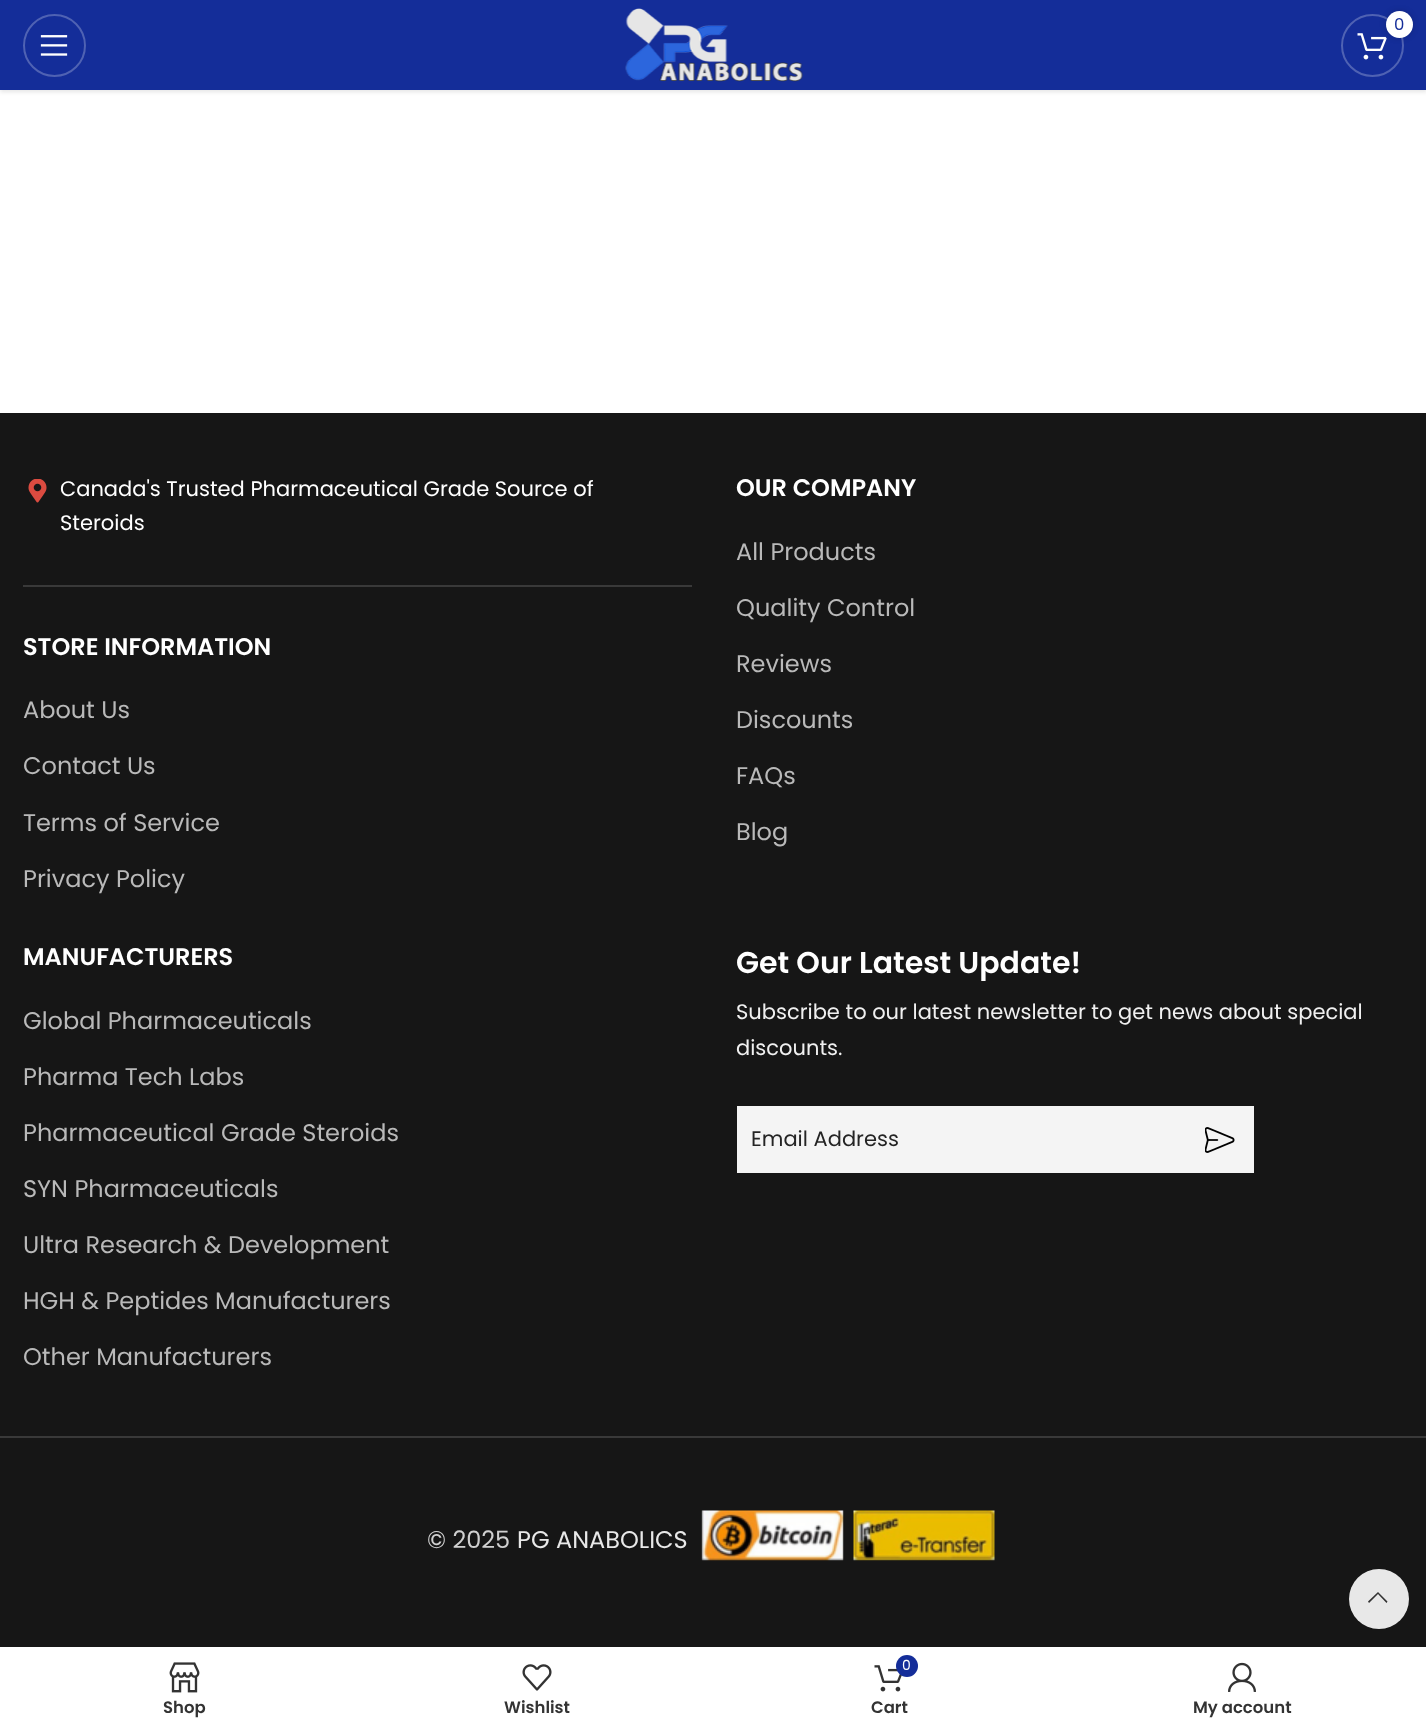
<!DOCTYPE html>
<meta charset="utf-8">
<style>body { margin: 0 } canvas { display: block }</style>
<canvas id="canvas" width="1426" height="1729"></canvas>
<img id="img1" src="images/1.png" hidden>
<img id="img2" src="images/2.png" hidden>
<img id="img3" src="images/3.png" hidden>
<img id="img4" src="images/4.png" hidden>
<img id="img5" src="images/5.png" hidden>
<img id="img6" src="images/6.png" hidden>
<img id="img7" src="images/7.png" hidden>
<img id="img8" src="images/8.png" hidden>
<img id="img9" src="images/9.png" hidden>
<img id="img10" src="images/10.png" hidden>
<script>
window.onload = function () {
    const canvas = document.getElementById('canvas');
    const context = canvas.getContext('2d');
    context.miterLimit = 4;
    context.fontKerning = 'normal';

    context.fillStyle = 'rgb(255, 255, 255)';
    context.fillRect(0, 0, 1426, 1729);
    context.fillStyle = 'rgba(0, 0, 0, 0.1)';
    context.filter = 'blur(2px)';
    context.beginPath();
    context.rect(0, 2, 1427, 90);
    context.fill();
    context.filter = 'none';
    context.fillStyle = 'rgb(20, 45, 153)';
    context.fillRect(0, 0, 1426, 90);
    context.beginPath();
    context.arc(54.5, 45.5, 30.5, 0, 2 * Math.PI);
    context.strokeStyle = 'rgb(79, 98, 179)';
    context.lineWidth = 2;
    context.stroke();
    context.drawImage(document.getElementById('img1'), 40, 35, 28, 21);
    context.drawImage(document.getElementById('img2'), 625, 8, 178, 74);
    context.beginPath();
    context.arc(1372.5, 45.5, 30.5, 0, 2 * Math.PI);
    context.stroke();
    context.drawImage(document.getElementById('img3'), 1357, 33, 30, 27);
    context.fillStyle = 'rgba(0, 0, 0, 0.17)';
    context.filter = 'blur(3px)';
    context.beginPath();
    context.roundRect(1386, 11, 27, 27, 13.5);
    context.fill();
    context.filter = 'none';
    context.fillStyle = 'rgb(255, 255, 255)';
    context.beginPath();
    context.arc(1399.5, 24.5, 13.5, 0, 2 * Math.PI);
    context.fill();
    context.fillStyle = 'rgb(22, 22, 22)';
    context.fillRect(0, 413, 1426, 1234);
    context.fillStyle = 'rgb(57, 57, 57)';
    context.fillRect(23, 585, 669, 2);
    context.drawImage(document.getElementById('img4'), 28, 479, 19, 24);
    context.fillStyle = 'rgb(244, 244, 244)';
    context.fillRect(737, 1106, 517, 67);
    context.drawImage(document.getElementById('img5'), 1205, 1127, 30, 26);
    context.fillStyle = 'rgb(57, 57, 57)';
    context.fillRect(0, 1436, 1426, 2);
    context.drawImage(document.getElementById('img6'), 701, 1510, 294, 51);
    context.fillStyle = 'rgb(232, 232, 232)';
    context.beginPath();
    context.arc(1379, 1599, 30, 0, 2 * Math.PI);
    context.fill();
    context.fillStyle = 'rgb(51, 51, 51)';
    context.beginPath();
    context.moveTo(1386.5, 1603);
    context.lineTo(1387.5, 1601.5);
    context.lineTo(1378, 1592);
    context.lineTo(1368, 1601.5);
    context.lineTo(1369, 1603);
    context.lineTo(1378, 1594);
    context.closePath();
    context.fill();
    context.drawImage(document.getElementById('img7'), 169, 1662, 31, 31);
    context.drawImage(document.getElementById('img8'), 522, 1664, 30, 27);
    context.drawImage(document.getElementById('img9'), 874, 1665, 28, 27);
    context.fillStyle = 'rgb(20, 45, 153)';
    context.beginPath();
    context.arc(907, 1666, 11, 0, 2 * Math.PI);
    context.fill();
    context.drawImage(document.getElementById('img10'), 1228, 1662, 28, 30);
    context.font = '16.5px Poppins';
    context.fillText('0', 1394, 30);
    context.font = '21px Poppins';
    context.fillStyle = 'rgb(255, 255, 255)';
    context.fillText('Canada\'s Trusted Pharmaceutical Grade Source of', 60, 496);
    context.fillText('Steroids', 60, 530);
    context.font = '600 24px Poppins';
    context.fillText('STORE INFORMATION', 23, 655);
    context.font = '24px Poppins';
    context.fillStyle = 'rgb(185, 185, 185)';
    context.fillText('About Us', 23, 718);
    context.fillText('Contact Us', 23, 774);
    context.fillText('Terms of Service', 23, 831);
    context.fillText('Privacy Policy', 23, 887);
    context.font = '600 24px Poppins';
    context.fillStyle = 'rgb(255, 255, 255)';
    context.fillText('OUR COMPANY', 736, 496);
    context.font = '24px Poppins';
    context.fillStyle = 'rgb(185, 185, 185)';
    context.fillText('All Products', 736, 560);
    context.fillText('Quality Control', 736, 616);
    context.fillText('Reviews', 736, 672);
    context.fillText('Discounts', 736, 728);
    context.fillText('FAQs', 736, 784);
    context.fillText('Blog', 736, 840);
    context.font = '600 24px Poppins';
    context.fillStyle = 'rgb(255, 255, 255)';
    context.fillText('MANUFACTURERS', 23, 965);
    context.font = '24px Poppins';
    context.fillStyle = 'rgb(185, 185, 185)';
    context.fillText('Global Pharmaceuticals', 23, 1029);
    context.fillText('Pharma Tech Labs', 23, 1085);
    context.fillText('Pharmaceutical Grade Steroids', 23, 1141);
    context.fillText('SYN Pharmaceuticals', 23, 1197);
    context.fillText('Ultra Research & Development', 23, 1253);
    context.fillText('HGH & Peptides Manufacturers', 23, 1309);
    context.fillText('Other Manufacturers', 23, 1365);
    context.font = '600 30px Poppins';
    context.fillStyle = 'rgb(255, 255, 255)';
    context.fillText('Get Our Latest Update!', 736, 973);
    context.font = '21px Poppins';
    context.fillStyle = 'rgb(240, 240, 240)';
    context.fillText('Subscribe to our latest newsletter to get news about special', 736, 1019);
    context.fillText('discounts.', 736, 1055);
    context.fillStyle = 'rgb(36, 36, 36)';
    context.fillText('Email Address', 751, 1146);
    context.font = '24px Poppins';
    context.fillStyle = 'rgb(208, 208, 208)';
    context.fillText('© 2025', 427, 1548);
    context.fillStyle = 'rgb(232, 232, 232)';
    context.fillText('PG ANABOLICS', 517, 1548);
    context.font = '600 16.5px Poppins';
    context.fillStyle = 'rgb(51, 51, 51)';
    context.fillText('Shop', 163, 1713);
    context.fillText('Wishlist', 504, 1713);
    context.font = '14px Poppins';
    context.fillStyle = 'rgb(255, 255, 255)';
    context.fillText('0', 902, 1670);
    context.font = '600 16.5px Poppins';
    context.fillStyle = 'rgb(51, 51, 51)';
    context.fillText('Cart', 871, 1713);
    context.fillText('My account', 1193, 1713);
};
</script>
